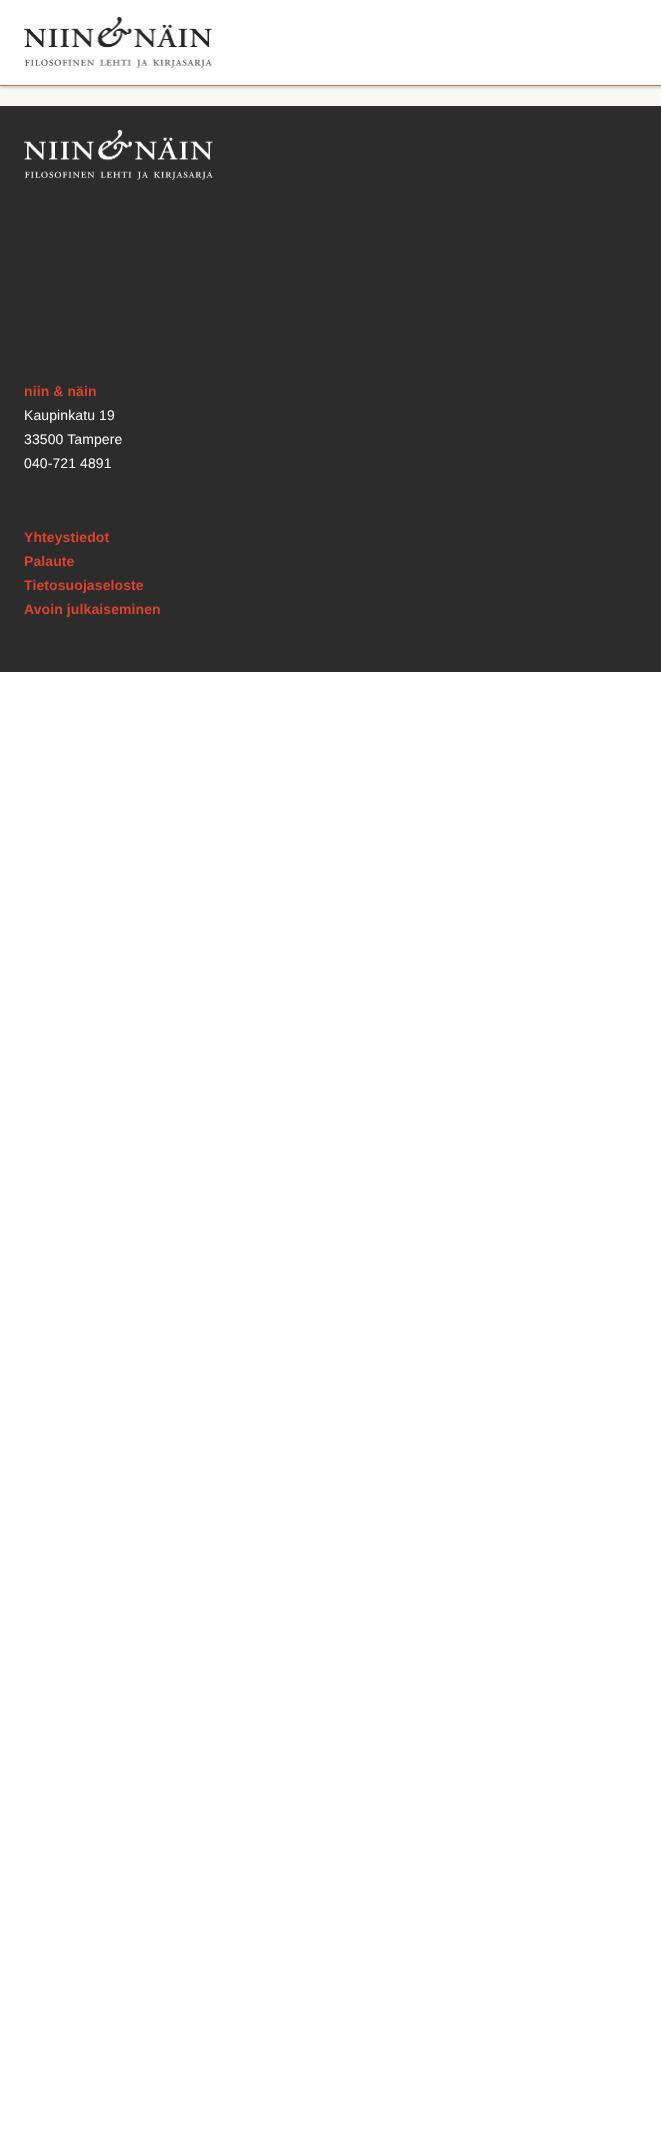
<!DOCTYPE html>
<meta charset="utf-8">
<style>body { margin: 0 } canvas { display: block }</style>
<canvas id="canvas" width="661" height="2155"></canvas>
<img id="img1" src="images/1.png" hidden>
<img id="img2" src="images/2.png" hidden>
<script>
window.onload = function () {
    const canvas = document.getElementById('canvas');
    const context = canvas.getContext('2d');
    context.miterLimit = 4;
    context.fontKerning = 'normal';

    context.fillStyle = 'rgb(255, 255, 255)';
    context.fillRect(0, 0, 661, 2155);
    context.fillStyle = 'rgb(250, 248, 245)';
    context.fillRect(0, 86, 661, 20);
    context.save();
    context.beginPath();
    context.rect(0, 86, 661, 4);
    context.clip();
    context.fillStyle = 'rgba(0, 0, 0, 0.16)';
    context.filter = 'blur(1.5px)';
    context.beginPath();
    context.rect(0, 2, 661, 86);
    context.fill();
    context.filter = 'none';
    context.restore();
    context.fillStyle = 'rgb(201, 106, 91)';
    context.fillRect(0, 85, 661, 1);
    context.drawImage(document.getElementById('img1'), 24, 17, 188, 51);
    context.fillStyle = 'rgb(44, 44, 44)';
    context.fillRect(0, 106, 661, 566);
    context.drawImage(document.getElementById('img2'), 24, 130, 189, 50);
    context.letterSpacing = '0.1px';
    context.font = 'bold 14px Liberation Sans';
    context.fillStyle = 'rgb(222, 66, 48)';
    context.fillText('niin & näin', 24, 396);
    context.font = '14px Liberation Sans';
    context.fillStyle = 'rgb(255, 255, 255)';
    context.fillText('Kaupinkatu 19', 24, 420);
    context.fillText('33500 Tampere', 24, 444);
    context.fillText('040-721 4891', 24, 468);
    context.font = 'bold 14px Liberation Sans';
    context.fillStyle = 'rgb(222, 66, 48)';
    context.fillText('Yhteystiedot', 24, 542);
    context.fillText('Palaute', 24, 566);
    context.fillText('Tietosuojaseloste', 24, 590);
    context.fillText('Avoin julkaiseminen', 24, 614);
};
</script>
